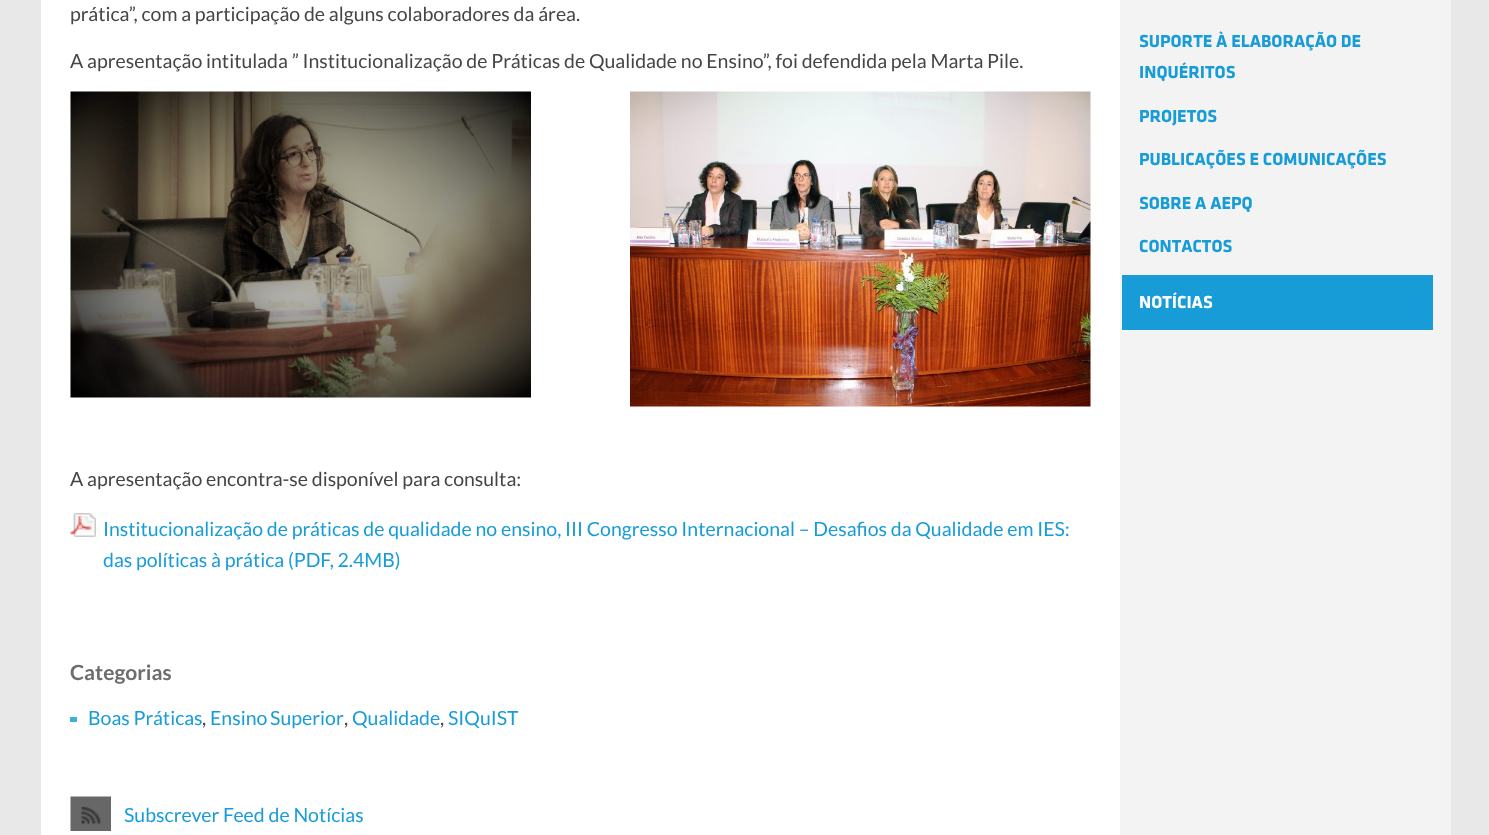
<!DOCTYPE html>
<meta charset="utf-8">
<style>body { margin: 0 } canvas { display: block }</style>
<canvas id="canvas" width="1489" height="835"></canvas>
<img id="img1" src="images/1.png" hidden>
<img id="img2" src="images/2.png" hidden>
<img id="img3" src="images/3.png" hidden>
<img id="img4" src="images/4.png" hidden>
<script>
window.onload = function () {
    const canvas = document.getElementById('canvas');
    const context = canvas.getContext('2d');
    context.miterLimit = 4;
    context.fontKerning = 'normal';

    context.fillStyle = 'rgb(232, 232, 232)';
    context.fillRect(0, 0, 1489, 835);
    context.fillStyle = 'rgb(255, 255, 255)';
    context.fillRect(41, 0, 1079, 835);
    context.fillStyle = 'rgb(243, 243, 243)';
    context.fillRect(1120, 0, 331, 835);
    context.drawImage(document.getElementById('img1'), 70, 91, 461, 307);
    context.drawImage(document.getElementById('img2'), 630, 91, 461, 316);
    context.drawImage(document.getElementById('img3'), 70, 513, 26, 24);
    context.fillStyle = 'rgb(61, 177, 215)';
    context.fillRect(70, 717, 7, 5);
    context.drawImage(document.getElementById('img4'), 70, 796, 41, 35);
    context.fillStyle = 'rgb(23, 156, 216)';
    context.fillRect(1122, 275, 311, 55);
    context.font = '19.5px Lato';
    context.fillStyle = 'rgb(69, 69, 69)';
    context.fillText('prática”, com a participação de alguns colaboradores da área.', 70, 21);
    context.fillText('A apresentação intitulada ” Institucionalização de Práticas de Qualidade no Ensino”, foi defendida pela Marta Pile.', 70, 68);
    context.fillText('A apresentação encontra-se disponível para consulta:', 70, 486);
    context.fillStyle = 'rgb(23, 156, 216)';
    context.fillText('Institucionalização de práticas de qualidade no ensino, III Congresso Internacional – Desafios da Qualidade em IES:', 103, 536);
    context.fillText('das políticas à prática (PDF, 2.4MB)', 103, 567);
    context.font = 'bold 21px Lato';
    context.fillStyle = 'rgb(109, 109, 109)';
    context.fillText('Categorias', 70, 680);
    context.font = '19.5px Lato';
    context.fillStyle = 'rgb(23, 156, 216)';
    context.fillText('Boas Práticas', 88, 725);
    context.fillStyle = 'rgb(69, 69, 69)';
    context.fillText(',', 202, 725);
    context.wordSpacing = '-1px';
    context.fillStyle = 'rgb(23, 156, 216)';
    context.fillText('Ensino Superior', 210, 725);
    context.wordSpacing = '0px';
    context.fillStyle = 'rgb(69, 69, 69)';
    context.fillText(',', 344, 725);
    context.fillStyle = 'rgb(23, 156, 216)';
    context.fillText('Qualidade', 352, 725);
    context.fillStyle = 'rgb(69, 69, 69)';
    context.fillText(',', 440, 725);
    context.fillStyle = 'rgb(23, 156, 216)';
    context.fillText('SIQuIST', 448, 725);
    context.fillText('Subscrever Feed de Notícias', 124, 822);
    context.font = 'bold 18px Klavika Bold';
    context.fillText('SUPORTE À ELABORAÇÃO DE', 1139, 47);
    context.fillText('INQUÉRITOS', 1139, 78);
    context.fillText('PROJETOS', 1139, 122);
    context.fillText('PUBLICAÇÕES E COMUNICAÇÕES', 1139, 165);
    context.fillText('SOBRE A AEPQ', 1139, 209);
    context.fillText('CONTACTOS', 1139, 252);
    context.fillStyle = 'rgb(255, 255, 255)';
    context.fillText('NOTÍCIAS', 1139, 308);
};
</script>
